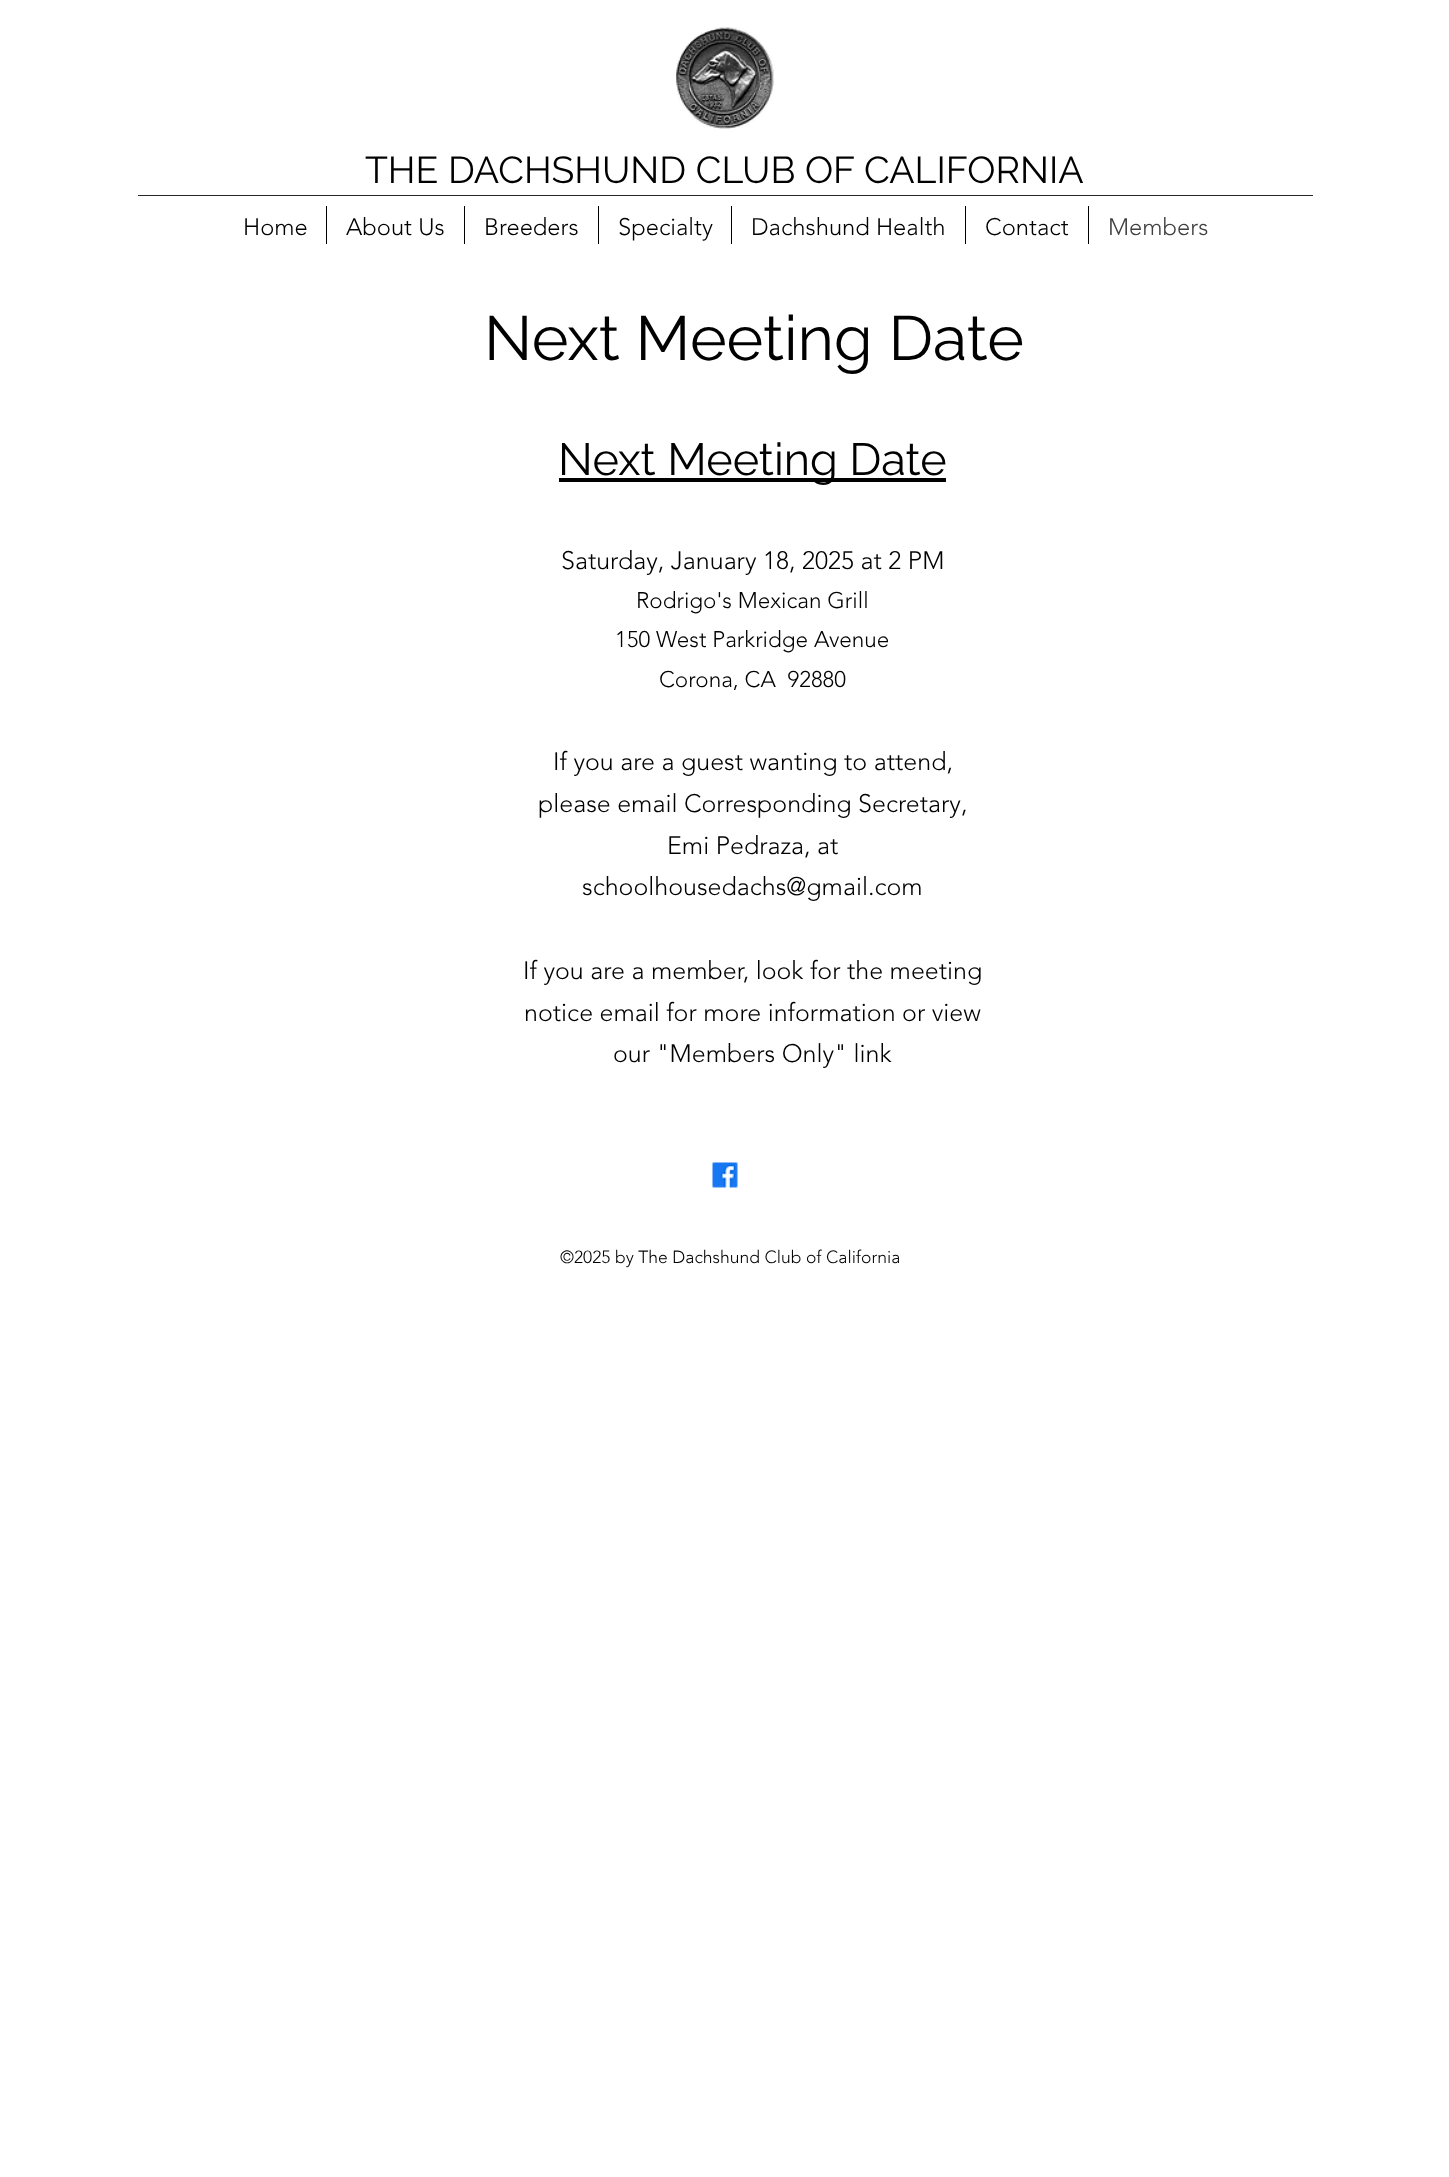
<!DOCTYPE html>
<meta charset="utf-8">
<style>body { margin: 0 } canvas { display: block }</style>
<canvas id="canvas" width="1449" height="2177"></canvas>
<img id="img1" src="images/1.png" hidden>
<img id="img2" src="images/2.png" hidden>
<script>
window.onload = function () {
    const canvas = document.getElementById('canvas');
    const context = canvas.getContext('2d');
    context.miterLimit = 4;
    context.fontKerning = 'normal';

    context.fillStyle = 'rgb(255, 255, 255)';
    context.fillRect(0, 0, 1449, 2177);
    context.drawImage(document.getElementById('img1'), 676, 27, 98, 102);
    context.fillStyle = 'rgb(38, 38, 38)';
    context.fillRect(138, 195, 1175, 1);
    context.fillStyle = 'rgb(0, 0, 0)';
    context.fillRect(326, 206, 1, 38);
    context.fillRect(464, 206, 1, 38);
    context.fillRect(598, 206, 1, 38);
    context.fillRect(731, 206, 1, 38);
    context.fillRect(965, 206, 1, 38);
    context.fillRect(1088, 206, 1, 38);
    context.fillRect(559, 478, 387, 4);
    context.drawImage(document.getElementById('img2'), 712, 1162, 26, 26);
    context.font = '37.5px Raleway';
    context.fillText('THE DACHSHUND CLUB OF CALIFORNIA', 365, 183);
    context.font = '300 23.75px "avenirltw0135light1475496"';
    context.fillText('Home', 243, 235);
    context.fillText('About Us', 346, 235);
    context.fillText('Breeders', 484, 235);
    context.fillText('Specialty', 618, 235);
    context.fillText('Dachshund Health', 751, 235);
    context.fillText('Contact', 985, 235);
    context.fillStyle = 'rgb(64, 64, 64)';
    context.fillText('Members', 1108, 235);
    context.font = '62.5px Raleway';
    context.fillStyle = 'rgb(0, 0, 0)';
    context.fillText('Next Meeting Date', 484, 360);
    context.font = '45px Raleway';
    context.fillText('Next Meeting Date', 558, 475);
    context.font = '300 25px "avenirltw0135light1475496"';
    context.fillText('Saturday, January 18, 2025 at 2 PM', 561, 569);
    context.font = '300 22.5px "avenirltw0135light1475496"';
    context.fillText('Rodrigo\'s Mexican Grill', 636, 608);
    context.fillText('150 West Parkridge Avenue', 615, 647);
    context.fillText('Corona, CA  92880', 659, 687);
    context.font = '300 25px "avenirltw0135light1475496"';
    context.fillText('If you are a guest wanting to attend,', 553, 770);
    context.fillText('please email Corresponding Secretary,', 538, 812);
    context.fillText('Emi Pedraza, at', 667, 854);
    context.fillText('schoolhousedachs@gmail.com', 582, 895);
    context.fillText('If you are a member, look for the meeting', 523, 979);
    context.fillText('notice email for more information or view', 524, 1021);
    context.fillText('our "Members Only" link', 613, 1062);
    context.font = '300 17.5px "avenirltw0135light1475496"';
    context.fillText('©2025 by The Dachshund Club of California', 560, 1263);
};
</script>
